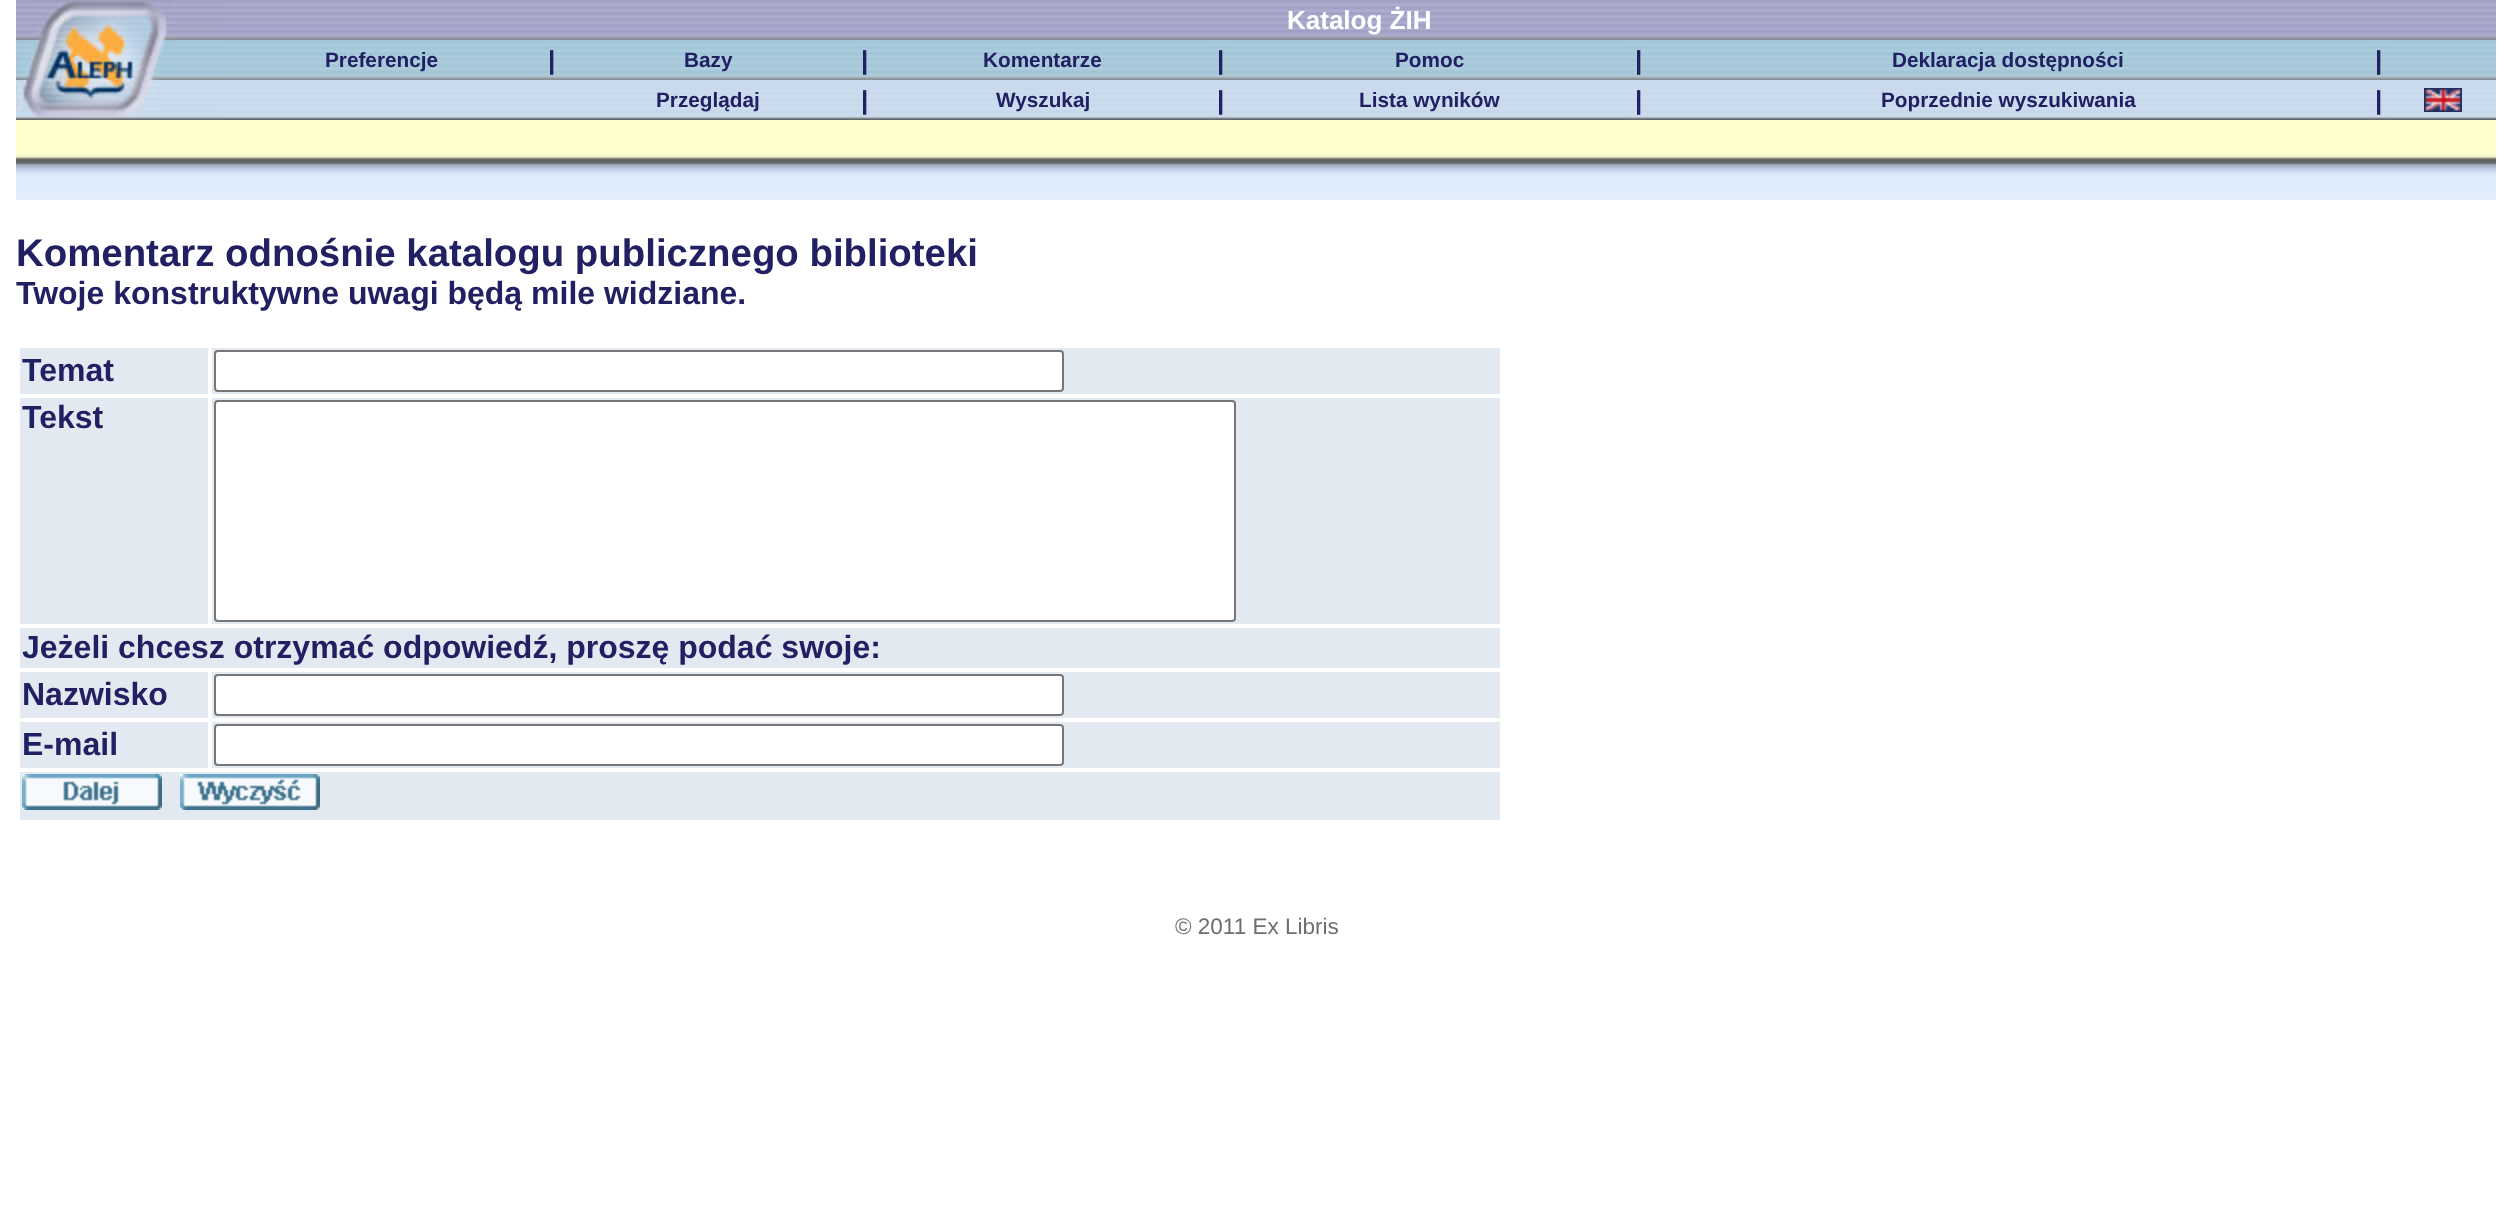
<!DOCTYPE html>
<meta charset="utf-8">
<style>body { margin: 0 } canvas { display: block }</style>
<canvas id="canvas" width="2512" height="1225"></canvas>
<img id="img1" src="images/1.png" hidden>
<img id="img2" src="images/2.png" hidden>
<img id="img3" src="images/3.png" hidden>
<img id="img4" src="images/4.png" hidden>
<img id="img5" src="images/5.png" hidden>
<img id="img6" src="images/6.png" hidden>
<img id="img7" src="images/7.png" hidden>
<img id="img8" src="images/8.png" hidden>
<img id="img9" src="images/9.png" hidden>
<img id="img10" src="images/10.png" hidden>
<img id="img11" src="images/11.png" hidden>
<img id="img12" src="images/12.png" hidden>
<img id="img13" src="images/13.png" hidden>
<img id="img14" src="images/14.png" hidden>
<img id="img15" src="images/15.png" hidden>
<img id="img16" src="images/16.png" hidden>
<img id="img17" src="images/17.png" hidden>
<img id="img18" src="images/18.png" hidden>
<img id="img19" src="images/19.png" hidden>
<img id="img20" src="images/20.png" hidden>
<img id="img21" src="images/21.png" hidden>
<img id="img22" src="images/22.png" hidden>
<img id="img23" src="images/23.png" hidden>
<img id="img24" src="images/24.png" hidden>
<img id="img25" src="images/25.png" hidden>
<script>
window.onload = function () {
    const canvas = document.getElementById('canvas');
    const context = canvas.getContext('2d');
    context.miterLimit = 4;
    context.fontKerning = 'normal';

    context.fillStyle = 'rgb(255, 255, 255)';
    context.fillRect(0, 0, 2512, 1225);
    context.drawImage(document.getElementById('img1'), 16, 0, 206, 40);
    context.drawImage(document.getElementById('img2'), 222, 0, 2274, 40);
    context.drawImage(document.getElementById('img3'), 16, 40, 206, 40);
    context.drawImage(document.getElementById('img4'), 222, 40, 320, 40);
    context.drawImage(document.getElementById('img5'), 542, 40, 20, 40);
    context.drawImage(document.getElementById('img6'), 562, 40, 292, 40);
    context.drawImage(document.getElementById('img7'), 854, 40, 22, 40);
    context.drawImage(document.getElementById('img8'), 876, 40, 334, 40);
    context.drawImage(document.getElementById('img5'), 1210, 40, 20, 40);
    context.drawImage(document.getElementById('img9'), 1230, 40, 398, 40);
    context.drawImage(document.getElementById('img5'), 1628, 40, 20, 40);
    context.drawImage(document.getElementById('img10'), 1648, 40, 720, 40);
    context.drawImage(document.getElementById('img5'), 2368, 40, 20, 40);
    context.drawImage(document.getElementById('img11'), 2388, 40, 108, 40);
    context.drawImage(document.getElementById('img12'), 16, 80, 206, 40);
    context.drawImage(document.getElementById('img13'), 222, 80, 340, 40);
    context.drawImage(document.getElementById('img14'), 562, 80, 292, 40);
    context.drawImage(document.getElementById('img15'), 854, 80, 22, 40);
    context.drawImage(document.getElementById('img16'), 876, 80, 334, 40);
    context.drawImage(document.getElementById('img17'), 1210, 80, 20, 40);
    context.drawImage(document.getElementById('img18'), 1230, 80, 398, 40);
    context.drawImage(document.getElementById('img17'), 1628, 80, 20, 40);
    context.drawImage(document.getElementById('img19'), 1648, 80, 720, 40);
    context.drawImage(document.getElementById('img17'), 2368, 80, 20, 40);
    context.drawImage(document.getElementById('img20'), 2388, 80, 108, 40);
    context.drawImage(document.getElementById('img21'), 2424, 88, 38, 24);
    context.drawImage(document.getElementById('img22'), 16, 120, 2480, 40);
    context.drawImage(document.getElementById('img23'), 16, 160, 2480, 40);
    context.fillStyle = 'rgb(226, 233, 240)';
    context.fillRect(20, 348, 188, 46);
    context.fillRect(212, 348, 1288, 46);
    context.fillStyle = 'rgb(255, 255, 255)';
    context.beginPath();
    context.roundRect(215, 351, 848, 40, 3);
    context.fill();
    context.strokeStyle = 'rgb(118, 118, 118)';
    context.lineWidth = 2;
    context.stroke();
    context.fillStyle = 'rgb(226, 233, 240)';
    context.fillRect(20, 398, 188, 226);
    context.fillRect(212, 398, 1288, 226);
    context.fillStyle = 'rgb(255, 255, 255)';
    context.beginPath();
    context.roundRect(215, 401, 1020, 220, 3);
    context.fill();
    context.stroke();
    context.fillStyle = 'rgb(226, 233, 240)';
    context.fillRect(20, 628, 1480, 40);
    context.fillRect(20, 672, 188, 46);
    context.fillRect(212, 672, 1288, 46);
    context.fillStyle = 'rgb(255, 255, 255)';
    context.beginPath();
    context.roundRect(215, 675, 848, 40, 3);
    context.fill();
    context.stroke();
    context.fillStyle = 'rgb(226, 233, 240)';
    context.fillRect(20, 722, 188, 46);
    context.fillRect(212, 722, 1288, 46);
    context.fillStyle = 'rgb(255, 255, 255)';
    context.beginPath();
    context.roundRect(215, 725, 848, 40, 3);
    context.fill();
    context.stroke();
    context.fillStyle = 'rgb(226, 233, 240)';
    context.fillRect(20, 772, 1480, 48);
    context.drawImage(document.getElementById('img24'), 22, 774, 140, 36);
    context.drawImage(document.getElementById('img25'), 180, 774, 140, 36);
    context.font = 'bold 26px Liberation Sans';
    context.fillStyle = 'rgb(255, 255, 255)';
    context.fillText('Katalog ŻIH', 1287, 29);
    context.font = 'bold 20.75px Liberation Sans';
    context.fillStyle = 'rgb(33, 32, 99)';
    context.fillText('Preferencje', 325, 67);
    context.font = 'bold 26px Liberation Sans';
    context.fillText('|', 548, 69);
    context.font = 'bold 20.75px Liberation Sans';
    context.fillText('Bazy', 684, 67);
    context.font = 'bold 26px Liberation Sans';
    context.fillText('|', 861, 69);
    context.font = 'bold 20.75px Liberation Sans';
    context.fillText('Komentarze', 983, 67);
    context.font = 'bold 26px Liberation Sans';
    context.fillText('|', 1217, 69);
    context.font = 'bold 20.75px Liberation Sans';
    context.fillText('Pomoc', 1395, 67);
    context.font = 'bold 26px Liberation Sans';
    context.fillText('|', 1635, 69);
    context.font = 'bold 20.75px Liberation Sans';
    context.fillText('Deklaracja dostępności', 1892, 67);
    context.font = 'bold 26px Liberation Sans';
    context.fillText('|', 2375, 69);
    context.font = 'bold 20.75px Liberation Sans';
    context.fillText('Przeglądaj', 656, 107);
    context.font = 'bold 26px Liberation Sans';
    context.fillText('|', 861, 109);
    context.font = 'bold 20.75px Liberation Sans';
    context.fillText('Wyszukaj', 996, 107);
    context.font = 'bold 26px Liberation Sans';
    context.fillText('|', 1217, 109);
    context.font = 'bold 20.75px Liberation Sans';
    context.fillText('Lista wyników', 1359, 107);
    context.font = 'bold 26px Liberation Sans';
    context.fillText('|', 1635, 109);
    context.font = 'bold 20.75px Liberation Sans';
    context.fillText('Poprzednie wyszukiwania', 1881, 107);
    context.font = 'bold 26px Liberation Sans';
    context.fillText('|', 2375, 109);
    context.font = 'bold 38.4px Liberation Sans';
    context.fillText('Komentarz odnośnie katalogu publicznego biblioteki', 16, 266);
    context.font = 'bold 32px Liberation Sans';
    context.fillText('Twoje konstruktywne uwagi będą mile widziane.', 16, 304);
    context.fillText('Temat', 22, 381);
    context.fillText('Tekst', 22, 428);
    context.fillText('Jeżeli chcesz otrzymać odpowiedź, proszę podać swoje:', 22, 658);
    context.fillText('Nazwisko', 22, 705);
    context.fillText('E-mail', 22, 755);
    context.font = '22.5px Liberation Sans';
    context.fillStyle = 'rgb(111, 111, 111)';
    context.fillText('© 2011 Ex Libris', 1175, 934);
};
</script>
